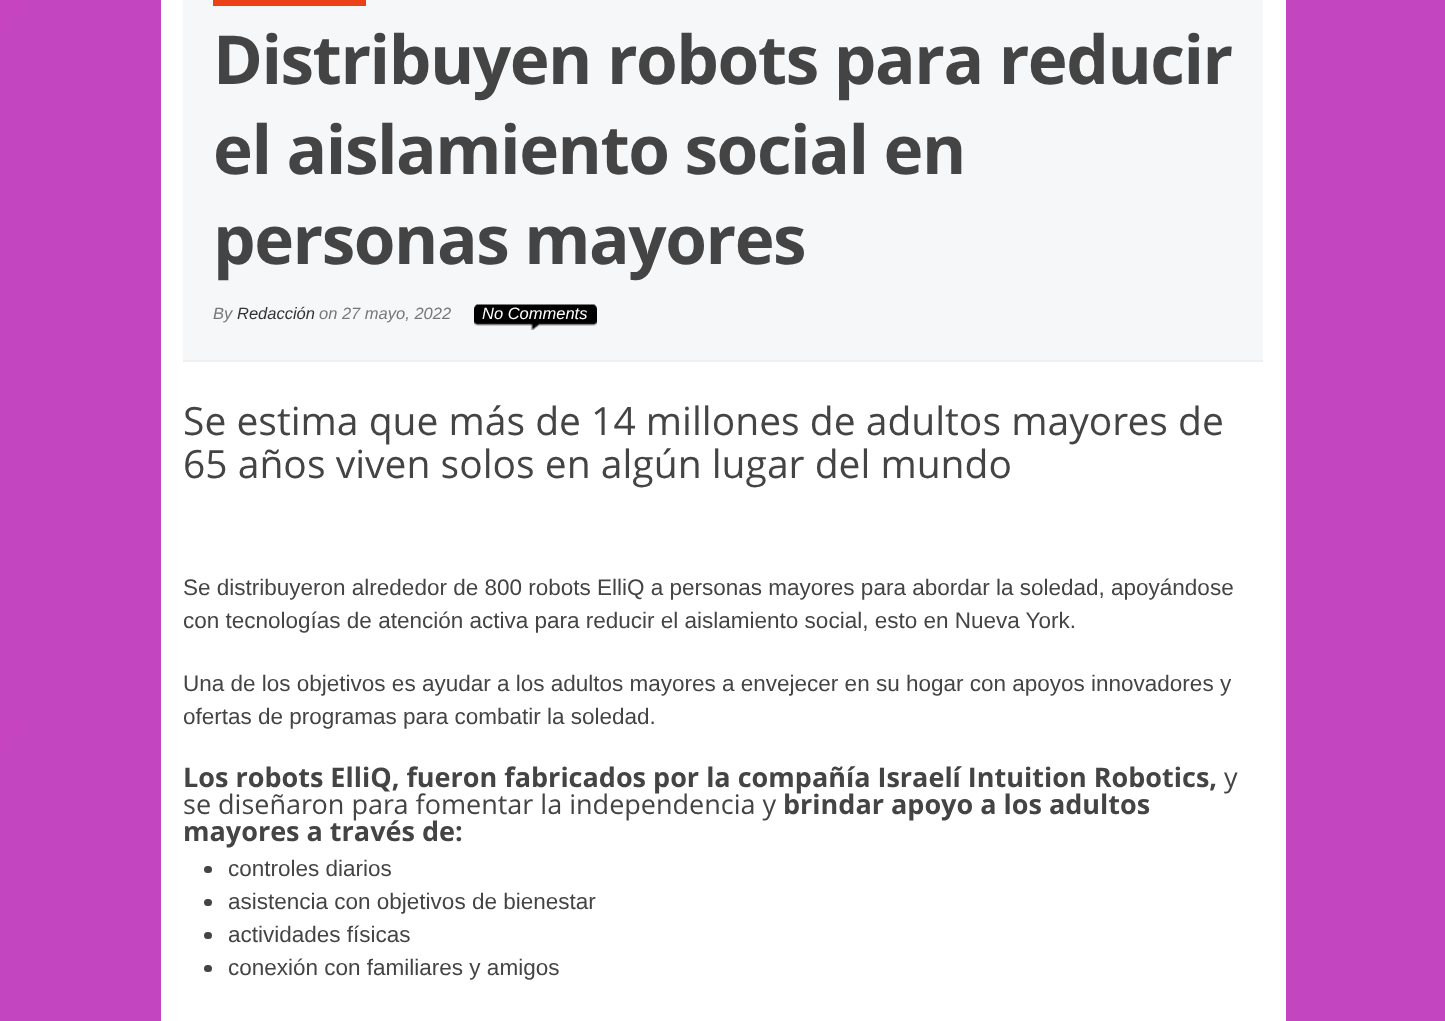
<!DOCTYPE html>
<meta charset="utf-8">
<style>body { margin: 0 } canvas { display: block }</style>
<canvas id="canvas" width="1445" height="1021"></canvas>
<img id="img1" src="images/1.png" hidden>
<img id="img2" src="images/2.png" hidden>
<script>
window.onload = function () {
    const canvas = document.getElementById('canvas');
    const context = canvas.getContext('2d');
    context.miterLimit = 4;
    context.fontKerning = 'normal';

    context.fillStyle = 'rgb(255, 255, 255)';
    context.fillRect(0, 0, 1445, 1021);
    context.drawImage(document.getElementById('img1'), 0, 0, 1445, 1021);
    context.fillRect(161, 0, 1125, 1021);
    context.fillStyle = 'rgb(245, 247, 249)';
    context.fillRect(183, 0, 1080, 360);
    context.fillStyle = 'rgb(239, 239, 239)';
    context.fillRect(183, 360, 1080, 2);
    context.fillStyle = 'rgb(236, 64, 23)';
    context.fillRect(213, 0, 153, 6);
    context.drawImage(document.getElementById('img2'), 474, 304, 123, 26);
    context.fillStyle = 'rgb(68, 68, 68)';
    context.beginPath();
    context.roundRect(204, 866, 8, 7, 3.5);
    context.fill();
    context.beginPath();
    context.roundRect(204, 899, 8, 7, 3.5);
    context.fill();
    context.beginPath();
    context.roundRect(204, 932, 8, 7, 3.5);
    context.fill();
    context.beginPath();
    context.roundRect(204, 965, 8, 7, 3.5);
    context.fill();
    context.letterSpacing = '-1.5px';
    context.font = 'bold 67.5px Open Sans';
    context.fillText('Distribuyen robots para reducir', 213, 84);
    context.fillText('el aislamiento social en', 213, 174);
    context.fillText('personas mayores', 213, 264);
    context.letterSpacing = '0px';
    context.font = 'italic 16.5px Liberation Sans';
    context.fillStyle = 'rgb(119, 119, 119)';
    context.fillText('By', 213, 319);
    context.fillStyle = 'rgb(51, 51, 51)';
    context.fillText('Redacción', 237, 319);
    context.fillStyle = 'rgb(119, 119, 119)';
    context.fillText('on 27 mayo, 2022', 319, 319);
    context.fillStyle = 'rgb(255, 255, 255)';
    context.fillText('No Comments', 482, 319);
    context.font = '39px Open Sans';
    context.fillStyle = 'rgb(68, 68, 68)';
    context.fillText('Se estima que más de 14 millones de adultos mayores de', 183, 435);
    context.fillText('65 años viven solos en algún lugar del mundo', 183, 478);
    context.font = '22.5px Liberation Sans';
    context.fillText('Se distribuyeron alrededor de 800 robots ElliQ a personas mayores para abordar la soledad, apoyándose', 183, 595);
    context.fillText('con tecnologías de atención activa para reducir el aislamiento social, esto en Nueva York.', 183, 628);
    context.fillText('Una de los objetivos es ayudar a los adultos mayores a envejecer en su hogar con apoyos innovadores y', 183, 691);
    context.fillText('ofertas de programas para combatir la soledad.', 183, 724);
    context.font = 'bold 27px Open Sans';
    context.fillText('Los robots ElliQ, fueron fabricados por la compañía Israelí Intuition Robotics,', 183, 787);
    context.font = '27px Open Sans';
    context.fillText('y', 1224, 787);
    context.fillText('se diseñaron para fomentar la independencia y', 183, 814);
    context.font = 'bold 27px Open Sans';
    context.fillText('brindar apoyo a los adultos', 783, 814);
    context.fillText('mayores a través de:', 183, 841);
    context.font = '22.5px Liberation Sans';
    context.fillText('controles diarios', 228, 876);
    context.fillText('asistencia con objetivos de bienestar', 228, 909);
    context.fillText('actividades físicas', 228, 942);
    context.fillText('conexión con familiares y amigos', 228, 975);
};
</script>
